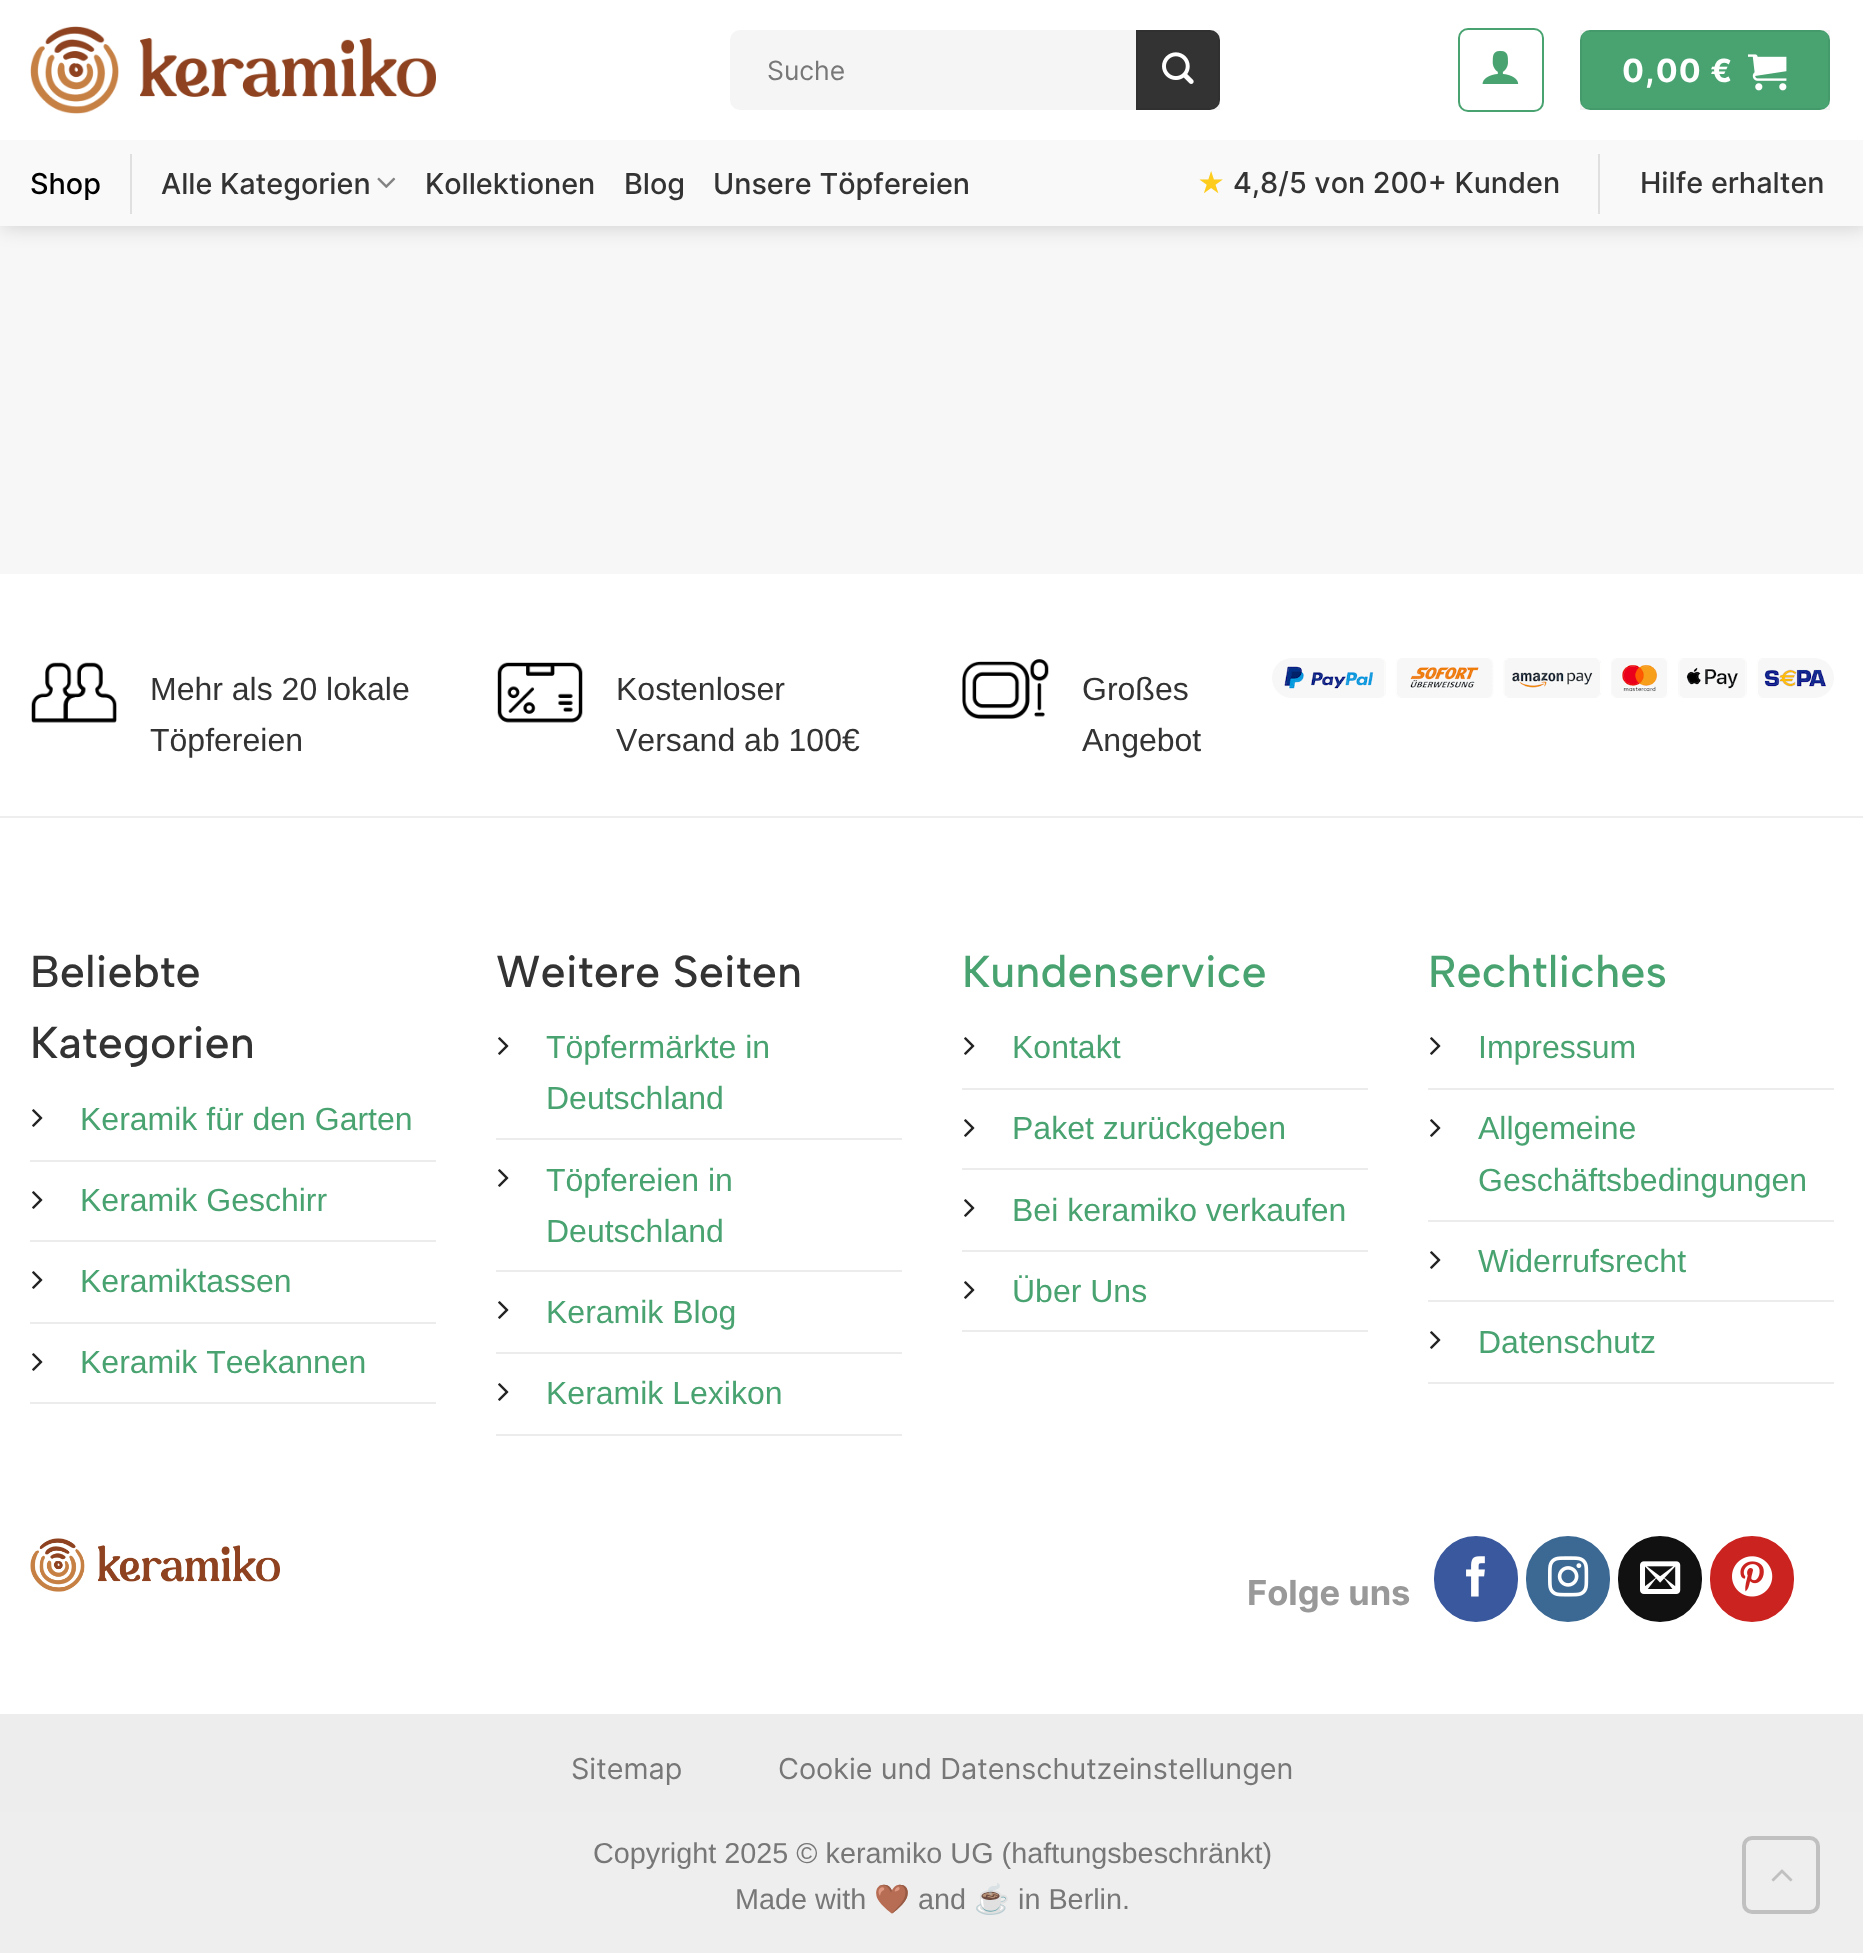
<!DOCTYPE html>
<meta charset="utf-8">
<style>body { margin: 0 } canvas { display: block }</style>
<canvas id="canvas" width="1863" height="1953"></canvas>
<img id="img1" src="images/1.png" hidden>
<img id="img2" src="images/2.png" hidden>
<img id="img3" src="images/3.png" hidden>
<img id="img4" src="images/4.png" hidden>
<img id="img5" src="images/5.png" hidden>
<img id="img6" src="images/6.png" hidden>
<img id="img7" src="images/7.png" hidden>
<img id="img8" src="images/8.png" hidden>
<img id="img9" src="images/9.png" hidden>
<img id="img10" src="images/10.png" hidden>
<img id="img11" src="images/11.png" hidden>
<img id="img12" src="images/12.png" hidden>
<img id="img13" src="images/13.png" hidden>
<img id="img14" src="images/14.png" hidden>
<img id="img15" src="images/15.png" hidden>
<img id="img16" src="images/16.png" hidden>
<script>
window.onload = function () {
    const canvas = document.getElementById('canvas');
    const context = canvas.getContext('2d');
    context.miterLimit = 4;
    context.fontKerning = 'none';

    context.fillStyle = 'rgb(255, 255, 255)';
    context.fillRect(0, 0, 1863, 1953);
    context.fillStyle = 'rgb(247, 247, 247)';
    context.fillRect(0, 226, 1863, 348);
    context.fillStyle = 'rgba(0, 0, 0, 0.15)';
    context.filter = 'blur(10px)';
    context.beginPath();
    context.rect(2, 2, 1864, 226);
    context.fill();
    context.filter = 'none';
    context.fillStyle = 'rgb(255, 255, 255)';
    context.fillRect(0, 0, 1863, 140);
    context.drawImage(document.getElementById('img1'), 30, 26, 406, 88);
    context.fillStyle = 'rgb(245, 245, 245)';
    context.beginPath();
    context.roundRect(730, 30, 406, 80, [10, 0, 0, 10]);
    context.fill();
    context.fillStyle = 'rgb(51, 51, 51)';
    context.beginPath();
    context.roundRect(1136, 30, 84, 80, [0, 10, 10, 0]);
    context.fill();
    context.strokeStyle = 'rgba(0, 0, 0, 0.05)';
    context.lineWidth = 2;
    context.strokeRect(1137, 31, 82, 78);
    context.drawImage(document.getElementById('img2'), 1162, 52, 32, 32);
    context.beginPath();
    context.roundRect(1459, 29, 84, 82, 9);
    context.strokeStyle = 'rgb(73, 163, 113)';
    context.stroke();
    context.drawImage(document.getElementById('img3'), 1482, 50, 37, 34);
    context.fillStyle = 'rgb(73, 163, 113)';
    context.beginPath();
    context.roundRect(1580, 30, 250, 80, 10);
    context.fill();
    context.strokeStyle = 'rgba(0, 0, 0, 0.05)';
    context.strokeRect(1581, 31, 248, 78);
    context.drawImage(document.getElementById('img4'), 1748, 54, 39, 37);
    context.fillStyle = 'rgb(249, 249, 249)';
    context.fillRect(0, 140, 1863, 86);
    context.fillStyle = 'rgb(224, 224, 224)';
    context.fillRect(130, 154, 2, 60);
    context.drawImage(document.getElementById('img5'), 377, 177, 19, 11);
    context.fillRect(1598, 154, 2, 60);
    context.drawImage(document.getElementById('img6'), 31, 662, 86, 61);
    context.drawImage(document.getElementById('img7'), 497, 662, 86, 61);
    context.drawImage(document.getElementById('img8'), 962, 659, 87, 60);
    context.drawImage(document.getElementById('img9'), 1272, 658, 562, 40);
    context.fillStyle = 'rgb(238, 238, 238)';
    context.fillRect(0, 816, 1863, 2);
    context.fillStyle = 'rgb(236, 236, 236)';
    context.fillRect(30, 1160, 406, 2);
    context.drawImage(document.getElementById('img10'), 32, 1109, 11, 18);
    context.fillRect(30, 1240, 406, 2);
    context.drawImage(document.getElementById('img10'), 32, 1191, 11, 18);
    context.fillRect(30, 1322, 406, 2);
    context.drawImage(document.getElementById('img10'), 32, 1271, 11, 18);
    context.fillRect(30, 1402, 406, 2);
    context.drawImage(document.getElementById('img10'), 32, 1353, 11, 18);
    context.fillRect(496, 1138, 406, 2);
    context.drawImage(document.getElementById('img10'), 498, 1037, 11, 18);
    context.fillRect(496, 1270, 406, 2);
    context.drawImage(document.getElementById('img10'), 498, 1169, 11, 18);
    context.fillRect(496, 1352, 406, 2);
    context.drawImage(document.getElementById('img10'), 498, 1301, 11, 18);
    context.fillRect(496, 1434, 406, 2);
    context.drawImage(document.getElementById('img10'), 498, 1383, 11, 18);
    context.fillRect(962, 1088, 406, 2);
    context.drawImage(document.getElementById('img10'), 964, 1037, 11, 18);
    context.fillRect(962, 1168, 406, 2);
    context.drawImage(document.getElementById('img10'), 964, 1119, 11, 18);
    context.fillRect(962, 1250, 406, 2);
    context.drawImage(document.getElementById('img10'), 964, 1199, 11, 18);
    context.fillRect(962, 1330, 406, 2);
    context.drawImage(document.getElementById('img10'), 964, 1281, 11, 18);
    context.fillRect(1428, 1088, 406, 2);
    context.drawImage(document.getElementById('img10'), 1430, 1037, 11, 18);
    context.fillRect(1428, 1220, 406, 2);
    context.drawImage(document.getElementById('img10'), 1430, 1119, 11, 18);
    context.fillRect(1428, 1300, 406, 2);
    context.drawImage(document.getElementById('img10'), 1430, 1251, 11, 18);
    context.fillRect(1428, 1382, 406, 2);
    context.drawImage(document.getElementById('img10'), 1430, 1331, 11, 18);
    context.drawImage(document.getElementById('img11'), 30, 1538, 250, 54);
    context.fillStyle = 'rgb(58, 88, 157)';
    context.beginPath();
    context.roundRect(1435, 1537, 82, 84, 41);
    context.fill();
    context.strokeStyle = 'rgb(58, 88, 157)';
    context.stroke();
    context.drawImage(document.getElementById('img12'), 1466, 1556, 19, 41);
    context.fillStyle = 'rgb(59, 105, 148)';
    context.beginPath();
    context.roundRect(1527, 1537, 82, 84, 41);
    context.fill();
    context.strokeStyle = 'rgb(59, 105, 148)';
    context.stroke();
    context.drawImage(document.getElementById('img13'), 1548, 1556, 41, 41);
    context.fillStyle = 'rgb(17, 17, 17)';
    context.beginPath();
    context.roundRect(1619, 1537, 82, 84, 41);
    context.fill();
    context.strokeStyle = 'rgb(17, 17, 17)';
    context.stroke();
    context.drawImage(document.getElementById('img14'), 1640, 1561, 41, 33);
    context.fillStyle = 'rgb(203, 35, 32)';
    context.beginPath();
    context.roundRect(1711, 1537, 82, 84, 41);
    context.fill();
    context.strokeStyle = 'rgb(203, 35, 32)';
    context.stroke();
    context.drawImage(document.getElementById('img15'), 1732, 1556, 41, 41);
    context.fillStyle = 'rgb(237, 237, 237)';
    context.fillRect(0, 1714, 1863, 98);
    context.fillStyle = 'rgb(238, 238, 238)';
    context.fillRect(0, 1812, 1863, 141);
    context.beginPath();
    context.roundRect(1744, 1838, 74, 74, 8);
    context.strokeStyle = 'rgb(192, 192, 192)';
    context.lineWidth = 4;
    context.stroke();
    context.drawImage(document.getElementById('img16'), 1771, 1869, 22, 13);
    context.font = '26.5px Inter';
    context.fillStyle = 'rgb(119, 119, 119)';
    context.fillText('Suche', 767, 80);
    context.letterSpacing = '1px';
    context.font = 'bold 32px Inter';
    context.fillStyle = 'rgb(255, 255, 255)';
    context.fillText('0,00 €', 1622, 82);
    context.letterSpacing = '0px';
    context.font = '500 28.8px Inter';
    context.fillStyle = 'rgb(0, 0, 0)';
    context.fillText('Shop', 30, 194);
    context.fillStyle = 'rgb(51, 51, 51)';
    context.fillText('Alle Kategorien', 161, 194);
    context.fillText('Kollektionen', 425, 194);
    context.fillText('Blog', 624, 194);
    context.fillText('Unsere Töpfereien', 713, 194);
    context.font = '500 27px Inter';
    context.fillStyle = 'rgb(253, 204, 29)';
    context.fillText('★', 1197, 193);
    context.font = '500 28.8px Inter';
    context.fillStyle = 'rgb(51, 51, 51)';
    context.fillText('4,8/5 von 200+ Kunden', 1233, 193);
    context.fillText('Hilfe erhalten', 1640, 193);
    context.font = '32px Liberation Sans';
    context.fillText('Mehr als 20 lokale', 150, 700);
    context.fillText('Töpfereien', 150, 751);
    context.fillText('Kostenloser', 616, 700);
    context.fillText('Versand ab 100€', 616, 751);
    context.fillText('Großes', 1082, 700);
    context.fillText('Angebot', 1082, 751);
    context.font = '500 44.75px Albert Sans';
    context.fillText('Beliebte', 30, 987);
    context.fillText('Kategorien', 30, 1058);
    context.font = '32px Liberation Sans';
    context.fillStyle = 'rgb(73, 163, 113)';
    context.fillText('Keramik für den Garten', 80, 1130);
    context.fillText('Keramik Geschirr', 80, 1211);
    context.fillText('Keramiktassen', 80, 1292);
    context.fillText('Keramik Teekannen', 80, 1373);
    context.font = '500 44.75px Albert Sans';
    context.fillStyle = 'rgb(51, 51, 51)';
    context.fillText('Weitere Seiten', 496, 987);
    context.font = '32px Liberation Sans';
    context.fillStyle = 'rgb(73, 163, 113)';
    context.fillText('Töpfermärkte in', 546, 1058);
    context.fillText('Deutschland', 546, 1109);
    context.fillText('Töpfereien in', 546, 1191);
    context.fillText('Deutschland', 546, 1242);
    context.fillText('Keramik Blog', 546, 1323);
    context.fillText('Keramik Lexikon', 546, 1404);
    context.font = '500 44.75px Albert Sans';
    context.fillText('Kundenservice', 962, 987);
    context.font = '32px Liberation Sans';
    context.fillText('Kontakt', 1012, 1058);
    context.fillText('Paket zurückgeben', 1012, 1139);
    context.fillText('Bei keramiko verkaufen', 1012, 1221);
    context.fillText('Über Uns', 1012, 1302);
    context.font = '500 44.75px Albert Sans';
    context.fillText('Rechtliches', 1428, 987);
    context.font = '32px Liberation Sans';
    context.fillText('Impressum', 1478, 1058);
    context.fillText('Allgemeine', 1478, 1139);
    context.fillText('Geschäftsbedingungen', 1478, 1191);
    context.fillText('Widerrufsrecht', 1478, 1272);
    context.fillText('Datenschutz', 1478, 1353);
    context.font = 'bold 34.5px Inter';
    context.fillStyle = 'rgb(153, 153, 153)';
    context.fillText('Folge uns', 1247, 1605);
    context.font = '28.8px Inter';
    context.fillStyle = 'rgb(119, 119, 119)';
    context.fillText('Sitemap', 571, 1779);
    context.fillText('Cookie und Datenschutzeinstellungen', 778, 1779);
    context.font = '28.8px Liberation Sans';
    context.fillText('Copyright 2025 © keramiko UG (haftungsbeschränkt)', 593, 1863);
    context.fillText('Made with', 735, 1909);
    context.font = '28.8px Noto Color Emoji';
    context.fillText('🤎', 874, 1909);
    context.font = '28.8px Liberation Sans';
    context.fillText('and', 918, 1909);
    context.font = '28.8px Noto Color Emoji';
    context.fillText('☕️', 974, 1909);
    context.font = '28.8px Liberation Sans';
    context.fillText('in Berlin.', 1018, 1909);
};
</script>
